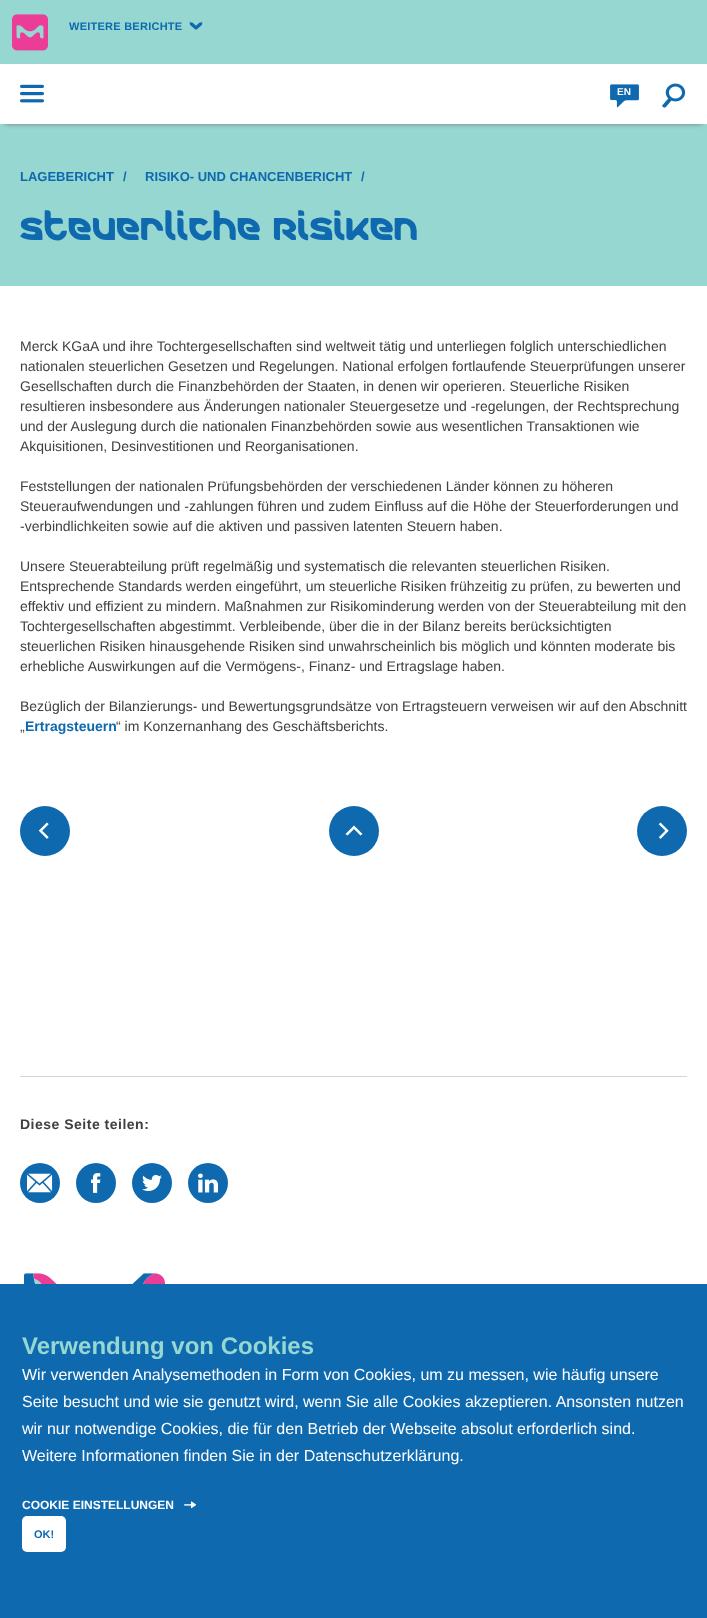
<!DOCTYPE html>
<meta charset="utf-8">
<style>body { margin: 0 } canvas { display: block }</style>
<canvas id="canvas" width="707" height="1618"></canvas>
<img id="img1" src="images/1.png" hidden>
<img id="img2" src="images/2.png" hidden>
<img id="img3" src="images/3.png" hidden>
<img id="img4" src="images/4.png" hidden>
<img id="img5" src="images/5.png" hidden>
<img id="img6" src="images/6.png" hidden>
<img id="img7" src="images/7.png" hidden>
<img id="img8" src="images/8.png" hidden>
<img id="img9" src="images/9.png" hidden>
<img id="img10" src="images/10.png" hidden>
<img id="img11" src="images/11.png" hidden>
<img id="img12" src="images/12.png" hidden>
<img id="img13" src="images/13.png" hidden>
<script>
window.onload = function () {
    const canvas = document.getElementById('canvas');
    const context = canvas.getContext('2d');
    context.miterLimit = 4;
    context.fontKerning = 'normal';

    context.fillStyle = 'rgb(255, 255, 255)';
    context.fillRect(0, 0, 707, 1618);
    context.fillStyle = 'rgb(150, 215, 210)';
    context.fillRect(0, 0, 707, 64);
    context.drawImage(document.getElementById('img1'), 12, 14, 36, 37);
    context.drawImage(document.getElementById('img2'), 189, 22, 14, 8);
    context.fillRect(0, 124, 707, 162);
    context.save();
    context.beginPath();
    context.rect(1, 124, 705, 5);
    context.clip();
    context.fillStyle = 'rgba(114, 114, 114, 0.9)';
    context.filter = 'blur(2.5px)';
    context.beginPath();
    context.rect(5, 74, 697, 50);
    context.fill();
    context.filter = 'none';
    context.restore();
    context.drawImage(document.getElementById('img3'), 20, 84, 24, 19);
    context.drawImage(document.getElementById('img4'), 610, 84, 29, 24);
    context.drawImage(document.getElementById('img5'), 662, 83, 24, 25);
    context.fillStyle = 'rgb(15, 105, 175)';
    context.beginPath();
    context.arc(45, 831, 25, 0, 2 * Math.PI);
    context.fill();
    context.drawImage(document.getElementById('img6'), 38, 822, 11, 17);
    context.beginPath();
    context.arc(354, 831, 25, 0, 2 * Math.PI);
    context.fill();
    context.fillStyle = 'rgb(255, 255, 255)';
    context.beginPath();
    context.moveTo(362.5, 834);
    context.lineTo(360.5, 835.5);
    context.lineTo(354, 829);
    context.lineTo(347.5, 835.5);
    context.lineTo(345.5, 834);
    context.lineTo(354, 825.5);
    context.closePath();
    context.fill();
    context.fillStyle = 'rgb(15, 105, 175)';
    context.beginPath();
    context.arc(662, 831, 25, 0, 2 * Math.PI);
    context.fill();
    context.drawImage(document.getElementById('img7'), 658, 822, 11, 17);
    context.fillStyle = 'rgb(214, 214, 214)';
    context.fillRect(20, 1076, 667, 1);
    context.fillStyle = 'rgb(15, 105, 175)';
    context.beginPath();
    context.arc(40, 1183, 20, 0, 2 * Math.PI);
    context.fill();
    context.drawImage(document.getElementById('img8'), 27, 1173, 26, 20);
    context.beginPath();
    context.arc(96, 1183, 20, 0, 2 * Math.PI);
    context.fill();
    context.drawImage(document.getElementById('img9'), 91, 1173, 10, 20);
    context.beginPath();
    context.arc(152, 1183, 20, 0, 2 * Math.PI);
    context.fill();
    context.drawImage(document.getElementById('img10'), 142, 1175, 20, 16);
    context.beginPath();
    context.arc(208, 1183, 20, 0, 2 * Math.PI);
    context.fill();
    context.drawImage(document.getElementById('img11'), 198, 1173, 20, 20);
    context.drawImage(document.getElementById('img12'), 24, 1273, 141, 11);
    context.fillRect(0, 1284, 707, 334);
    context.drawImage(document.getElementById('img13'), 184, 1501, 12, 8);
    context.fillStyle = 'rgb(255, 255, 255)';
    context.beginPath();
    context.roundRect(22, 1516, 44, 36, 5);
    context.fill();
    context.letterSpacing = '0.25px';
    context.font = 'bold 11px Liberation Sans';
    context.fillStyle = 'rgb(15, 105, 175)';
    context.fillText('WEITERE BERICHTE', 69, 30);
    context.letterSpacing = '0px';
    context.font = 'bold 10px Liberation Sans';
    context.fillStyle = 'rgb(255, 255, 255)';
    context.fillText('EN', 617, 95);
    context.font = 'bold 13px Liberation Sans';
    context.fillStyle = 'rgb(15, 105, 175)';
    context.fillText('LAGEBERICHT', 20, 181);
    context.fillText('/', 123, 181);
    context.fillText('RISIKO- UND CHANCENBERICHT', 145, 181);
    context.fillText('/', 361, 181);
    context.font = '32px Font';
    context.fillText('Steuerliche Risiken', 20, 240);
    context.font = '14px Liberation Sans';
    context.fillStyle = 'rgb(64, 64, 64)';
    context.fillText('Merck KGaA und ihre Tochtergesellschaften sind weltweit tätig und unterliegen folglich unterschiedlichen', 20, 351);
    context.fillText('nationalen steuerlichen Gesetzen und Regelungen. National erfolgen fortlaufende Steuerprüfungen unserer', 20, 371);
    context.fillText('Gesellschaften durch die Finanzbehörden der Staaten, in denen wir operieren. Steuerliche Risiken', 20, 391);
    context.fillText('resultieren insbesondere aus Änderungen nationaler Steuergesetze und -regelungen, der Rechtsprechung', 20, 411);
    context.fillText('und der Auslegung durch die nationalen Finanzbehörden sowie aus wesentlichen Transaktionen wie', 20, 431);
    context.fillText('Akquisitionen, Desinvestitionen und Reorganisationen.', 20, 451);
    context.fillText('Feststellungen der nationalen Prüfungsbehörden der verschiedenen Länder können zu höheren', 20, 491);
    context.fillText('Steueraufwendungen und -zahlungen führen und zudem Einfluss auf die Höhe der Steuerforderungen und', 20, 511);
    context.fillText('-verbindlichkeiten sowie auf die aktiven und passiven latenten Steuern haben.', 20, 531);
    context.fillText('Unsere Steuerabteilung prüft regelmäßig und systematisch die relevanten steuerlichen Risiken.', 20, 571);
    context.fillText('Entsprechende Standards werden eingeführt, um steuerliche Risiken frühzeitig zu prüfen, zu bewerten und', 20, 591);
    context.fillText('effektiv und effizient zu mindern. Maßnahmen zur Risikominderung werden von der Steuerabteilung mit den', 20, 611);
    context.fillText('Tochtergesellschaften abgestimmt. Verbleibende, über die in der Bilanz bereits berücksichtigten', 20, 631);
    context.fillText('steuerlichen Risiken hinausgehende Risiken sind unwahrscheinlich bis möglich und könnten moderate bis', 20, 651);
    context.fillText('erhebliche Auswirkungen auf die Vermögens-, Finanz- und Ertragslage haben.', 20, 671);
    context.fillText('Bezüglich der Bilanzierungs- und Bewertungsgrundsätze von Ertragsteuern verweisen wir auf den Abschnitt', 20, 711);
    context.fillText('„', 20, 731);
    context.font = 'bold 14px Liberation Sans';
    context.fillStyle = 'rgb(15, 105, 175)';
    context.fillText('Ertragsteuern', 25, 731);
    context.font = '14px Liberation Sans';
    context.fillStyle = 'rgb(64, 64, 64)';
    context.fillText('“ im Konzernanhang des Geschäftsberichts.', 116, 731);
    context.letterSpacing = '0.5px';
    context.font = 'bold 14px Liberation Sans';
    context.fillText('Diese Seite teilen:', 20, 1129);
    context.letterSpacing = '0px';
    context.font = 'bold 24px Liberation Sans';
    context.fillStyle = 'rgb(150, 215, 210)';
    context.fillText('Verwendung von Cookies', 22, 1354);
    context.font = '16px Liberation Sans';
    context.fillStyle = 'rgb(255, 255, 255)';
    context.fillText('Wir verwenden Analysemethoden in Form von Cookies, um zu messen, wie häufig unsere', 22, 1380);
    context.fillText('Seite besucht und wie sie genutzt wird, wenn Sie alle Cookies akzeptieren. Ansonsten nutzen', 22, 1407);
    context.fillText('wir nur notwendige Cookies, die für den Betrieb der Webseite absolut erforderlich sind.', 22, 1434);
    context.fillText('Weitere Informationen finden Sie in der Datenschutzerklärung.', 22, 1461);
    context.font = 'bold 12px Liberation Sans';
    context.fillText('COOKIE EINSTELLUNGEN', 22, 1509);
    context.font = 'bold 11px Liberation Sans';
    context.fillStyle = 'rgb(15, 105, 175)';
    context.fillText('OK!', 34, 1538);
};
</script>
